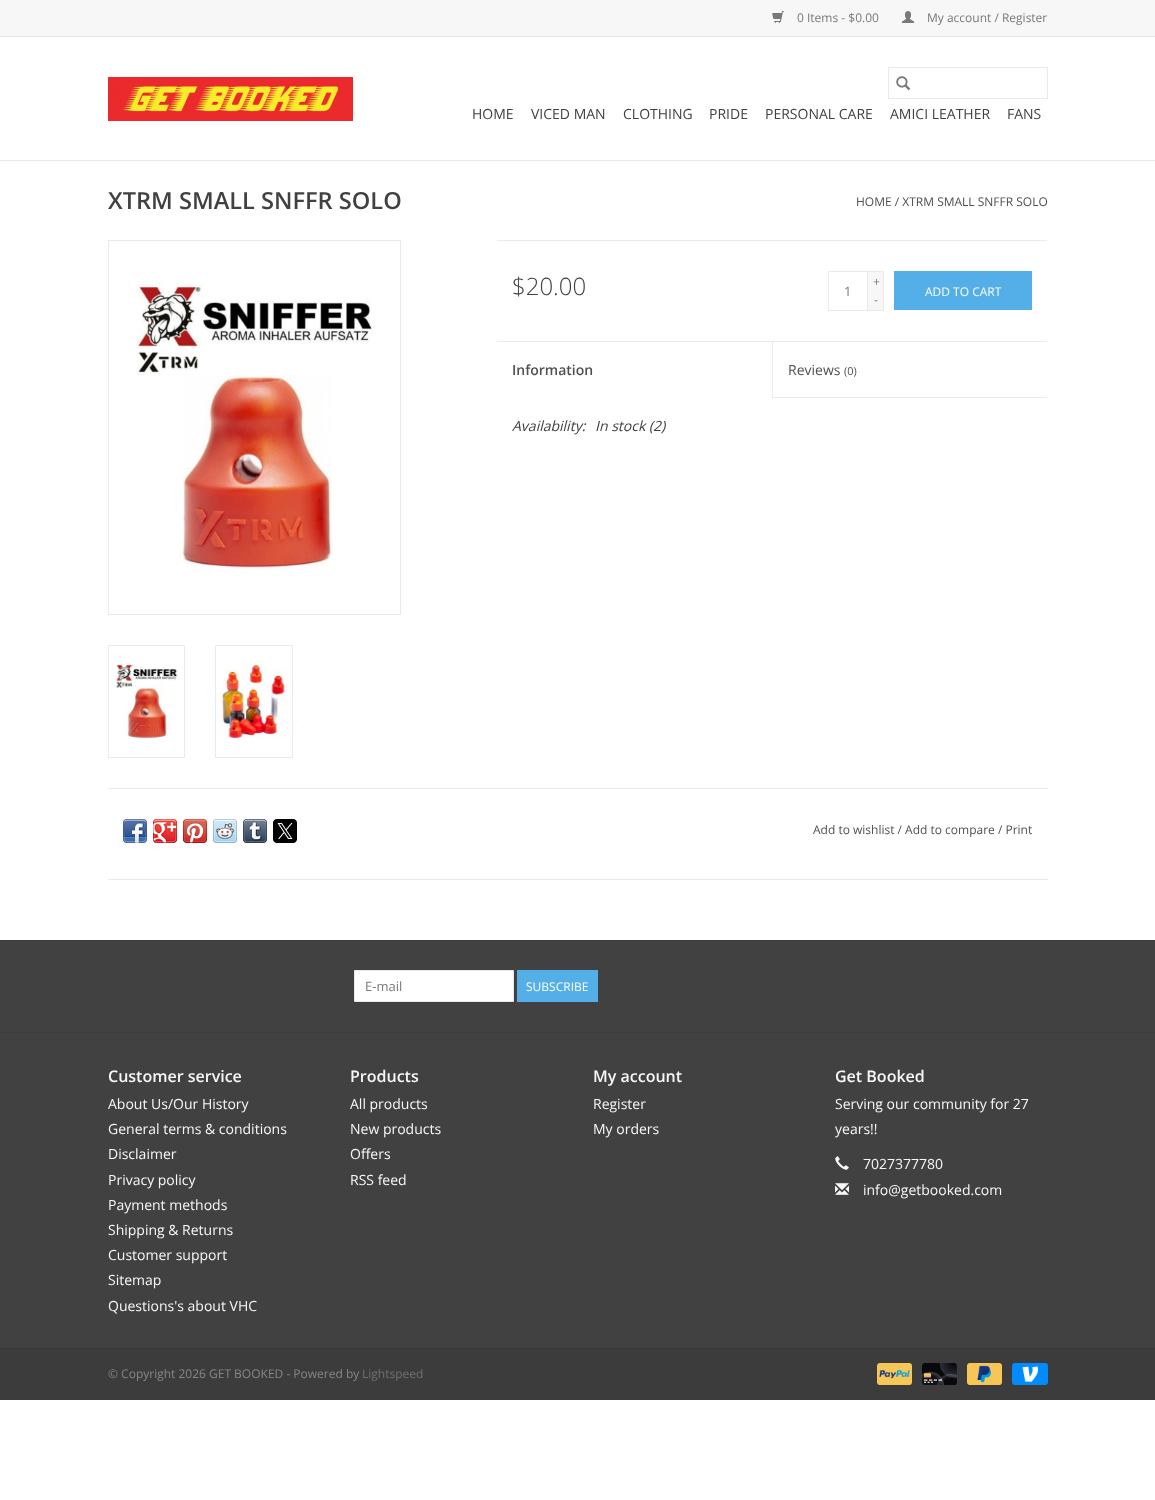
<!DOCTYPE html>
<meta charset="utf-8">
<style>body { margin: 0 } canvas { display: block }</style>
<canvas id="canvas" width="1155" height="1500"></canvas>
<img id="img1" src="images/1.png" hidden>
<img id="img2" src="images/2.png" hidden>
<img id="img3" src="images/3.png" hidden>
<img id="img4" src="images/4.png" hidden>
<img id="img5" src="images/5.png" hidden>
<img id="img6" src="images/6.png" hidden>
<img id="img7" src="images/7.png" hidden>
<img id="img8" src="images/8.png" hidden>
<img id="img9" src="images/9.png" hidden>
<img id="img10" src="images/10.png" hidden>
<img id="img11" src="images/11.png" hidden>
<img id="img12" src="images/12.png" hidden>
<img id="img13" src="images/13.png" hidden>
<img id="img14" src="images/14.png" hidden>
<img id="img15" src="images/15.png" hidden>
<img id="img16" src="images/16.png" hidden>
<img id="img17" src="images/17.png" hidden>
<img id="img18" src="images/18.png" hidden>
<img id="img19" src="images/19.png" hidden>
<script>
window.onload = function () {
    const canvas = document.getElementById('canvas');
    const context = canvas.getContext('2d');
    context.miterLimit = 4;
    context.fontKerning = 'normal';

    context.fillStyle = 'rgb(255, 255, 255)';
    context.fillRect(0, 0, 1155, 1500);
    context.fillStyle = 'rgb(234, 234, 234)';
    context.fillRect(0, 160, 1155, 1);
    context.fillStyle = 'rgb(247, 247, 247)';
    context.fillRect(0, 0, 1155, 36);
    context.fillStyle = 'rgb(229, 229, 229)';
    context.fillRect(0, 36, 1155, 1);
    context.drawImage(document.getElementById('img1'), 772, 11, 12, 12);
    context.drawImage(document.getElementById('img2'), 902, 11, 12, 12);
    context.drawImage(document.getElementById('img3'), 108, 77, 245, 44);
    context.strokeStyle = 'rgb(234, 234, 234)';
    context.strokeRect(888.5, 67.5, 159, 31);
    context.drawImage(document.getElementById('img4'), 896, 76, 15, 15);
    context.strokeRect(108.5, 240.5, 292, 374);
    context.drawImage(document.getElementById('img5'), 109, 241, 291, 373);
    context.strokeRect(108.5, 645.5, 76, 112);
    context.drawImage(document.getElementById('img6'), 109, 646, 75, 111);
    context.strokeRect(215.5, 645.5, 77, 112);
    context.drawImage(document.getElementById('img7'), 216, 646, 76, 111);
    context.fillStyle = 'rgb(234, 234, 234)';
    context.fillRect(497, 240, 550, 1);
    context.strokeRect(828.5, 271.5, 39, 39);
    context.fillStyle = 'rgb(247, 247, 247)';
    context.fillRect(868, 272, 15, 38);
    context.fillStyle = 'rgb(234, 234, 234)';
    context.fillRect(868, 271, 16, 1);
    context.fillRect(883, 271, 1, 40);
    context.fillRect(868, 310, 16, 1);
    context.fillStyle = 'rgb(84, 175, 233)';
    context.fillRect(894, 271, 138, 39);
    context.fillStyle = 'rgb(234, 234, 234)';
    context.fillRect(497, 341, 550, 1);
    context.fillRect(772, 397, 275, 1);
    context.fillRect(772, 342, 1, 56);
    context.fillRect(108, 788, 940, 1);
    context.fillRect(108, 879, 940, 1);
    context.drawImage(document.getElementById('img8'), 123, 819, 24, 24);
    context.drawImage(document.getElementById('img9'), 153, 819, 24, 24);
    context.drawImage(document.getElementById('img10'), 183, 819, 24, 24);
    context.drawImage(document.getElementById('img11'), 213, 819, 24, 24);
    context.drawImage(document.getElementById('img12'), 243, 819, 24, 24);
    context.drawImage(document.getElementById('img13'), 273, 819, 24, 24);
    context.fillStyle = 'rgb(65, 65, 65)';
    context.fillRect(0, 941, 1155, 407);
    context.fillStyle = 'rgb(59, 59, 59)';
    context.fillRect(0, 940, 1155, 1);
    context.fillStyle = 'rgb(255, 255, 255)';
    context.beginPath();
    context.rect(354.5, 970.5, 159, 31);
    context.fill();
    context.strokeStyle = 'rgb(233, 233, 233)';
    context.stroke();
    context.fillStyle = 'rgb(84, 175, 233)';
    context.fillRect(517, 970, 81, 32);
    context.fillStyle = 'rgb(59, 59, 59)';
    context.fillRect(0, 1032, 1155, 1);
    context.drawImage(document.getElementById('img14'), 835, 1156, 14, 14);
    context.drawImage(document.getElementById('img15'), 835, 1183, 14, 12);
    context.fillStyle = 'rgb(55, 55, 55)';
    context.fillRect(0, 1348, 1155, 1);
    context.fillStyle = 'rgb(60, 60, 60)';
    context.fillRect(0, 1349, 1155, 51);
    context.drawImage(document.getElementById('img16'), 877, 1363, 35, 22);
    context.drawImage(document.getElementById('img17'), 922, 1363, 35, 22);
    context.drawImage(document.getElementById('img18'), 967, 1363, 35, 22);
    context.drawImage(document.getElementById('img19'), 1012, 1363, 36, 22);
    context.font = '12px Open Sans';
    context.fillStyle = 'rgb(121, 121, 121)';
    context.fillText('0 Items - $0.00', 797, 22);
    context.fillText('My account / Register', 927, 22);
    context.font = '14px Open Sans';
    context.fillStyle = 'rgb(65, 65, 65)';
    context.fillText('HOME', 472, 119);
    context.fillText('VICED MAN', 531, 119);
    context.fillText('CLOTHING', 623, 119);
    context.fillText('PRIDE', 709, 119);
    context.fillText('PERSONAL CARE', 765, 119);
    context.fillText('AMICI LEATHER', 890, 119);
    context.fillText('FANS', 1007, 119);
    context.font = '600 23.6px Open Sans';
    context.fillText('XTRM SMALL SNFFR SOLO', 108, 209);
    context.font = '12px Open Sans';
    context.fillStyle = 'rgb(80, 80, 80)';
    context.fillText('HOME / XTRM SMALL SNFFR SOLO', 856, 206);
    context.font = '300 24px Open Sans';
    context.fillStyle = 'rgb(65, 65, 65)';
    context.fillText('$20.00', 512, 295);
    context.font = '13px Open Sans';
    context.fillStyle = 'rgb(121, 121, 121)';
    context.fillText('1', 844, 296);
    context.font = '12px Open Sans';
    context.fillText('+', 873, 286);
    context.fillText('-', 874, 304);
    context.fillStyle = 'rgb(255, 255, 255)';
    context.fillText('ADD TO CART', 925, 296);
    context.font = '600 14px Open Sans';
    context.fillStyle = 'rgb(80, 80, 80)';
    context.fillText('Information', 512, 375);
    context.font = '14px Open Sans';
    context.fillText('Reviews', 788, 375);
    context.font = '11px Open Sans';
    context.fillText('(0)', 844, 375);
    context.font = 'italic 14px Open Sans';
    context.fillStyle = 'rgb(65, 65, 65)';
    context.fillText('Availability:', 512, 431);
    context.fillText('In stock (2)', 595, 431);
    context.font = '12px Open Sans';
    context.fillStyle = 'rgb(80, 80, 80)';
    context.fillText('Add to wishlist / Add to compare / Print', 813, 834);
    context.font = '13px Open Sans';
    context.fillStyle = 'rgb(121, 121, 121)';
    context.fillText('E-mail', 365, 991);
    context.font = '12px Open Sans';
    context.fillStyle = 'rgb(255, 255, 255)';
    context.fillText('SUBSCRIBE', 526, 991);
    context.font = '600 16px Open Sans';
    context.fillStyle = 'rgb(247, 247, 247)';
    context.fillText('Customer service', 108, 1082);
    context.font = '14px Open Sans';
    context.fillText('About Us/Our History', 108, 1109);
    context.fillText('General terms & conditions', 108, 1134);
    context.fillText('Disclaimer', 108, 1159);
    context.fillText('Privacy policy', 108, 1185);
    context.fillText('Payment methods', 108, 1210);
    context.fillText('Shipping & Returns', 108, 1235);
    context.fillText('Customer support', 108, 1260);
    context.fillText('Sitemap', 108, 1285);
    context.fillText('Questions\'s about VHC', 108, 1311);
    context.font = '600 16px Open Sans';
    context.fillText('Products', 350, 1082);
    context.font = '14px Open Sans';
    context.fillText('All products', 350, 1109);
    context.fillText('New products', 350, 1134);
    context.fillText('Offers', 350, 1159);
    context.fillText('RSS feed', 350, 1185);
    context.font = '600 16px Open Sans';
    context.fillText('My account', 593, 1082);
    context.font = '14px Open Sans';
    context.fillText('Register', 593, 1109);
    context.fillText('My orders', 593, 1134);
    context.font = '600 16px Open Sans';
    context.fillText('Get Booked', 835, 1082);
    context.font = '14px Open Sans';
    context.fillText('Serving our community for 27', 835, 1109);
    context.fillText('years!!', 835, 1134);
    context.fillText('7027377780', 863, 1169);
    context.fillText('info@getbooked.com', 863, 1195);
    context.font = '12px Open Sans';
    context.fillStyle = 'rgb(135, 135, 135)';
    context.fillText('© Copyright 2026 GET BOOKED - Powered by', 108, 1378);
    context.fillStyle = 'rgb(112, 112, 112)';
    context.fillText('Lightspeed', 362, 1378);
};
</script>
